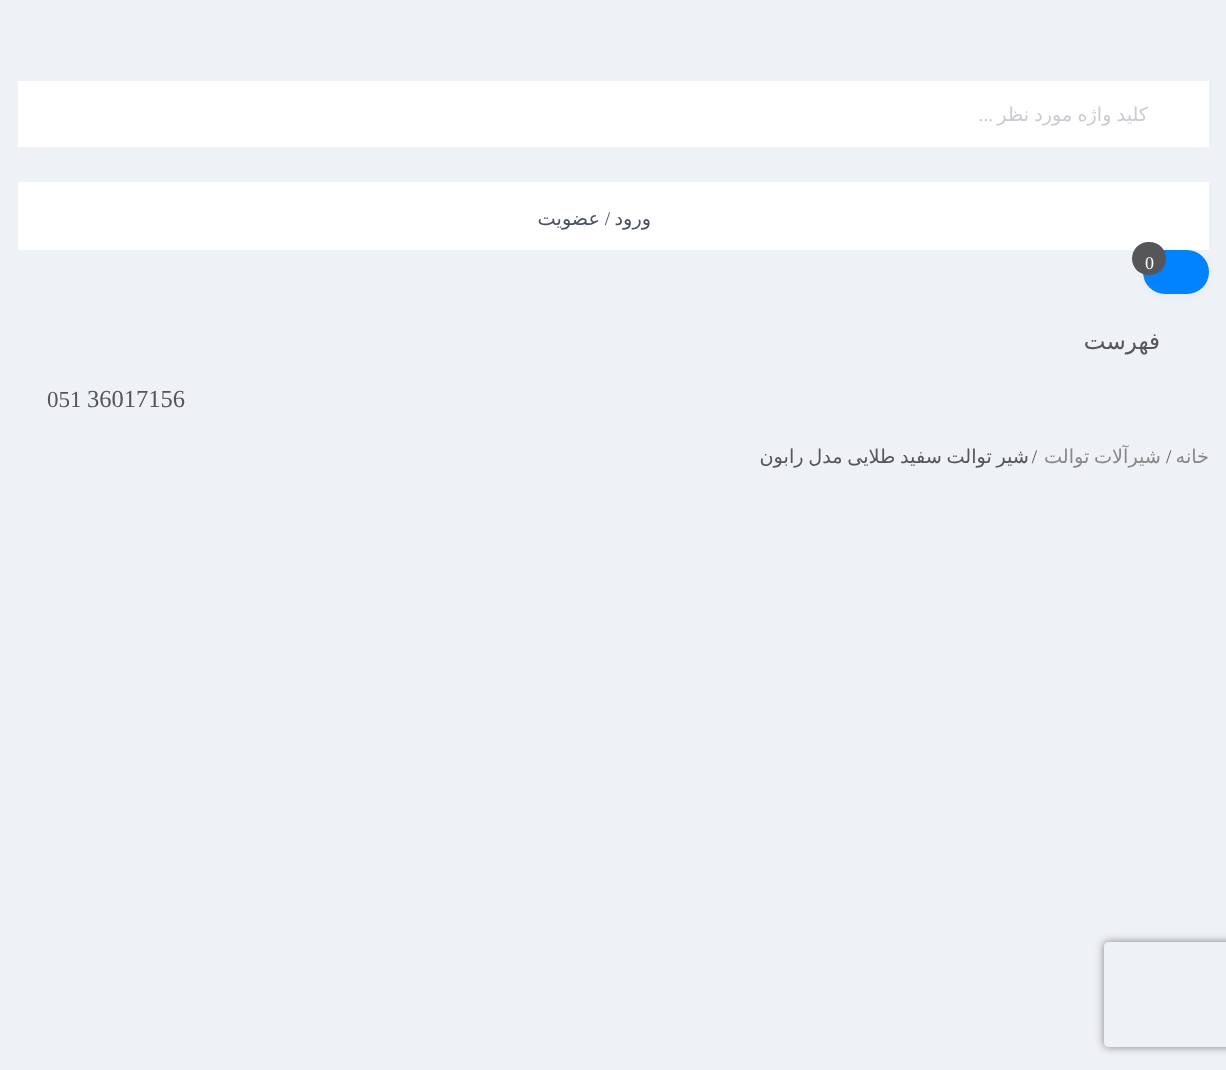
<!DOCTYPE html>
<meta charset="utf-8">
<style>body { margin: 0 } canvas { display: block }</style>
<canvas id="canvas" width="1226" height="1070"></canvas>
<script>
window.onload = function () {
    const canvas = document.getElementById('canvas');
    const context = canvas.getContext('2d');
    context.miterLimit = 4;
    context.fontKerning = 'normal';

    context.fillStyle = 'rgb(238, 241, 246)';
    context.fillRect(0, 0, 1226, 1070);
    context.fillStyle = 'rgb(255, 255, 255)';
    context.fillRect(18, 81, 1191, 66);
    context.fillRect(18, 182, 1191, 68);
    context.fillStyle = 'rgba(0, 0, 0, 0.1)';
    context.filter = 'blur(6px)';
    context.beginPath();
    context.roundRect(1148, 257, 56, 34, 17);
    context.fill();
    context.filter = 'none';
    context.fillStyle = 'rgb(1, 131, 255)';
    context.beginPath();
    context.roundRect(1143, 250, 66, 44, 22);
    context.fill();
    context.fillStyle = 'rgb(85, 85, 90)';
    context.beginPath();
    context.roundRect(1132, 242, 34, 33, 16.5);
    context.fill();
    context.save();
    context.beginPath();
    context.moveTo(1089, 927);
    context.lineTo(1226, 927);
    context.lineTo(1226, 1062);
    context.lineTo(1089, 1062);
    context.closePath();
    context.moveTo(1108, 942);
    context.lineTo(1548, 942);
    context.bezierCurveTo(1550, 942, 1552, 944, 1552, 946);
    context.lineTo(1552, 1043);
    context.bezierCurveTo(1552, 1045, 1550, 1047, 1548, 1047);
    context.lineTo(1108, 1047);
    context.bezierCurveTo(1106, 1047, 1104, 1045, 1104, 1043);
    context.lineTo(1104, 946);
    context.bezierCurveTo(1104, 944, 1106, 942, 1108, 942);
    context.closePath();
    context.clip('evenodd');
    context.fillStyle = 'rgb(128, 128, 128)';
    context.filter = 'blur(4.5px)';
    context.beginPath();
    context.roundRect(1104, 942, 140, 105, 4);
    context.fill();
    context.filter = 'none';
    context.restore();
    context.wordSpacing = '-1px';
    context.direction = 'rtl';
    context.font = '19.25px DejaVu Sans';
    context.fillStyle = 'rgb(203, 204, 210)';
    context.fillText('کلید واژه مورد نظر', 1148, 121);
    context.wordSpacing = '0px';
    context.font = '19.25px Liberation Serif';
    context.fillText('...', 993, 121);
    context.font = '19.25px DejaVu Sans';
    context.fillStyle = 'rgb(74, 81, 95)';
    context.fillText('ورود', 651, 225);
    context.font = '19.25px Liberation Serif';
    context.fillText('/', 610, 225);
    context.font = '19.25px DejaVu Sans';
    context.fillText('عضویت', 600, 225);
    context.direction = 'ltr';
    context.font = '18px Liberation Serif';
    context.fillStyle = 'rgb(255, 255, 255)';
    context.fillText('0', 1145, 269);
    context.direction = 'rtl';
    context.font = '23px DejaVu Sans';
    context.fillStyle = 'rgb(85, 85, 90)';
    context.fillText('فهرست', 1160, 349);
    context.direction = 'ltr';
    context.font = '24.5px Liberation Serif';
    context.fillText('36017156', 87, 407);
    context.font = '23px Liberation Serif';
    context.fillText('051', 47, 407);
    context.direction = 'rtl';
    context.font = '19.25px DejaVu Sans';
    context.fillStyle = 'rgb(136, 136, 136)';
    context.fillText('خانه', 1209, 463);
    context.direction = 'ltr';
    context.font = '19.25px Liberation Serif';
    context.fillStyle = 'rgb(85, 85, 90)';
    context.fillText('/', 1166, 463);
    context.wordSpacing = '-1.5px';
    context.direction = 'rtl';
    context.font = '19.25px DejaVu Sans';
    context.fillStyle = 'rgb(136, 136, 136)';
    context.fillText('شیرآلات توالت', 1161, 463);
    context.wordSpacing = '0px';
    context.font = '19.25px Liberation Serif';
    context.fillStyle = 'rgb(85, 85, 90)';
    context.fillText('/', 1037, 463);
    context.wordSpacing = '-1.5px';
    context.font = '19.25px DejaVu Sans';
    context.fillText('شیر توالت سفید طلایی مدل رابون', 1029, 463);
};
</script>
